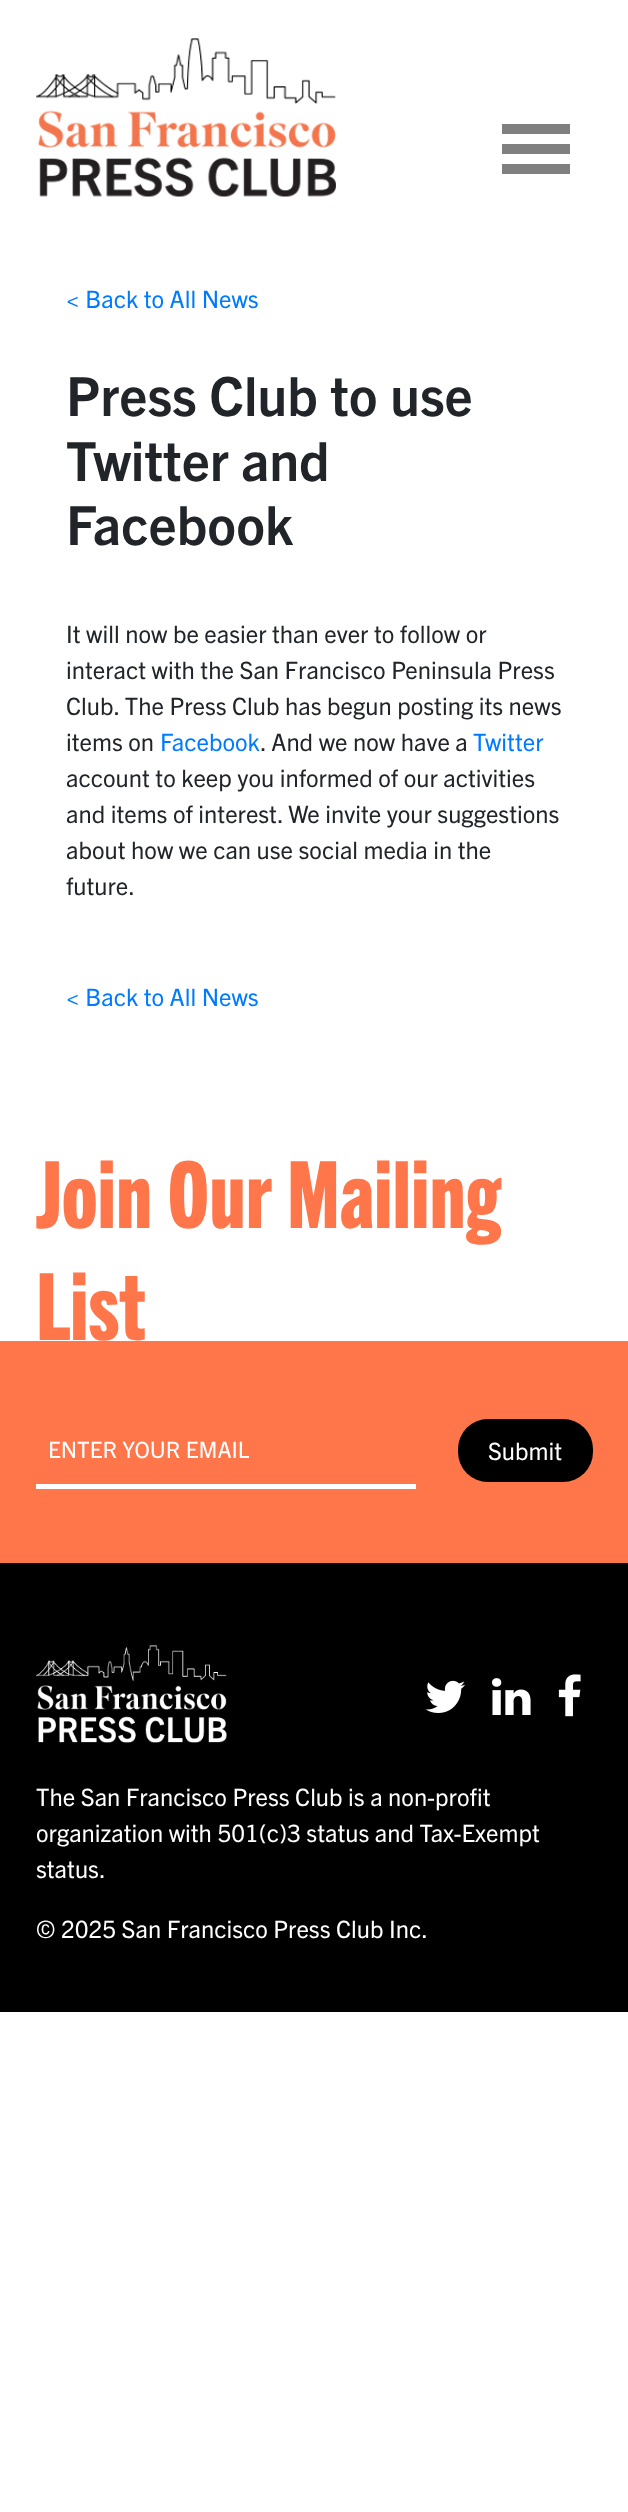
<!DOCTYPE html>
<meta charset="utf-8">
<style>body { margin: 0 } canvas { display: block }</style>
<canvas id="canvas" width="628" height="2512"></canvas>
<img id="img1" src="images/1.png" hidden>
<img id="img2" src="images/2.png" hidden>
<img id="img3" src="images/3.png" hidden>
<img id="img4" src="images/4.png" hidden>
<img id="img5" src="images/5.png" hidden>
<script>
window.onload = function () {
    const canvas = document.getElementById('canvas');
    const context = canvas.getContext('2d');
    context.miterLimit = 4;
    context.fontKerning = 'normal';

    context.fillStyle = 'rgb(255, 255, 255)';
    context.fillRect(0, 0, 628, 2512);
    context.drawImage(document.getElementById('img1'), 36, 38, 300, 159);
    context.fillStyle = 'rgb(128, 128, 128)';
    context.beginPath();
    context.moveTo(570, 134);
    context.lineTo(570, 124);
    context.lineTo(502, 124);
    context.lineTo(502, 134);
    context.closePath();
    context.moveTo(570, 154);
    context.lineTo(570, 144);
    context.lineTo(502, 144);
    context.lineTo(502, 154);
    context.closePath();
    context.moveTo(570, 174);
    context.lineTo(570, 164);
    context.lineTo(502, 164);
    context.lineTo(502, 174);
    context.closePath();
    context.fill();
    context.fillStyle = 'rgb(0, 0, 0)';
    context.fillRect(0, 1563, 628, 449);
    context.fillStyle = 'rgb(255, 118, 74)';
    context.fillRect(0, 1341, 628, 222);
    context.fillStyle = 'rgb(255, 255, 255)';
    context.fillRect(36, 1484, 380, 5);
    context.fillStyle = 'rgb(0, 0, 0)';
    context.beginPath();
    context.roundRect(458, 1419, 135, 63, 30);
    context.fill();
    context.drawImage(document.getElementById('img2'), 36, 1645, 191, 98);
    context.drawImage(document.getElementById('img3'), 425, 1680, 40, 33);
    context.drawImage(document.getElementById('img4'), 492, 1678, 39, 37);
    context.drawImage(document.getElementById('img5'), 558, 1674, 23, 43);
    context.font = '24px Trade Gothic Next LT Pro';
    context.fillStyle = 'rgb(0, 123, 255)';
    context.fillText('< Back to All News', 66, 308);
    context.font = 'bold 54px Trade Gothic Next LT Pro';
    context.fillStyle = 'rgb(33, 37, 41)';
    context.fillText('Press Club to use', 66, 416);
    context.fillText('Twitter and', 66, 481);
    context.fillText('Facebook', 66, 545);
    context.font = '24px Trade Gothic Next LT Pro';
    context.fillText('It will now be easier than ever to follow or', 66, 643);
    context.fillText('interact with the San Francisco Peninsula Press', 66, 679);
    context.fillText('Club. The Press Club has begun posting its news', 66, 715);
    context.fillText('items on', 66, 751);
    context.fillStyle = 'rgb(0, 123, 255)';
    context.fillText('Facebook', 160, 751);
    context.fillStyle = 'rgb(33, 37, 41)';
    context.fillText('. And we now have a', 260, 751);
    context.fillStyle = 'rgb(0, 123, 255)';
    context.fillText('Twitter', 473, 751);
    context.fillStyle = 'rgb(33, 37, 41)';
    context.fillText('account to keep you informed of our activities', 66, 787);
    context.fillText('and items of interest. We invite your suggestions', 66, 823);
    context.fillText('about how we can use social media in the', 66, 859);
    context.fillText('future.', 66, 895);
    context.fillStyle = 'rgb(0, 123, 255)';
    context.fillText('< Back to All News', 66, 1006);
    context.font = '800 93px Trade Gothic Next LT Pro';
    context.fillStyle = 'rgb(255, 118, 74)';
    context.fillText('Join Our Mailing', 36, 1228);
    context.fillText('List', 36, 1340);
    context.font = '22.5px Trade Gothic Next LT Pro';
    context.fillStyle = 'rgb(255, 255, 255)';
    context.fillText('ENTER YOUR EMAIL', 48, 1458);
    context.font = '24px Trade Gothic Next LT Pro';
    context.fillText('Submit', 488, 1460);
    context.fillText('The San Francisco Press Club is a non-profit', 36, 1806);
    context.fillText('organization with 501(c)3 status and Tax-Exempt', 36, 1842);
    context.fillText('status.', 36, 1878);
    context.fillText('© 2025 San Francisco Press Club Inc.', 36, 1938);
};
</script>
